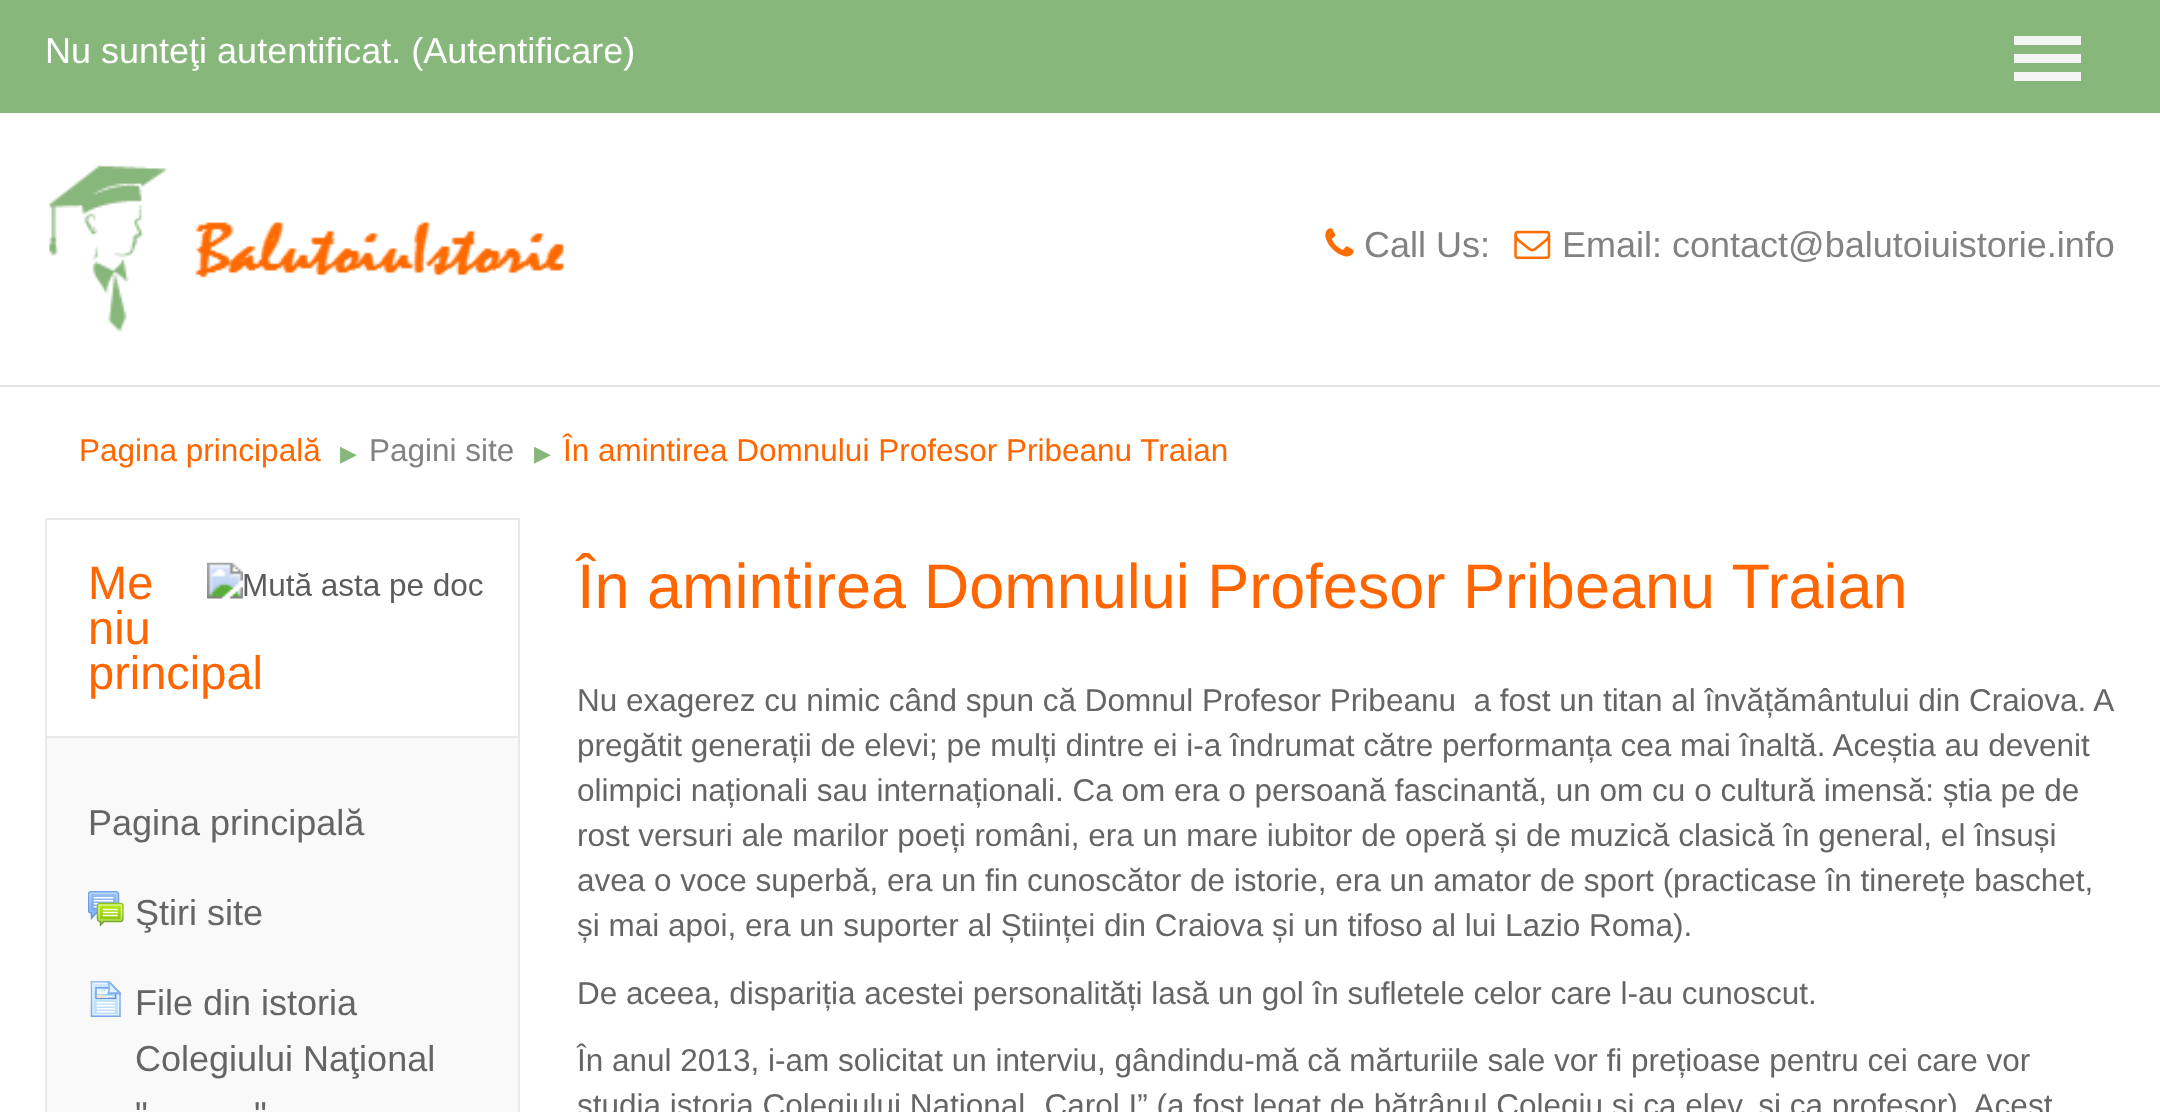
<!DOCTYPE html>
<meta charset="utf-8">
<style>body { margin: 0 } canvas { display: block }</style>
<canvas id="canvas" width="2160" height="1112"></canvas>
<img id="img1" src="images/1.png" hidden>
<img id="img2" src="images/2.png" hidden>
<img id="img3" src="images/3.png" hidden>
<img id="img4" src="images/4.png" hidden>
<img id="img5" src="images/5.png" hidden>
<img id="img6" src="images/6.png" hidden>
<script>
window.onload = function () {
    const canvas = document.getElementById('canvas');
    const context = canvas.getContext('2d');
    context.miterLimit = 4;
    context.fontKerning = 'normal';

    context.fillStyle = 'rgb(255, 255, 255)';
    context.fillRect(0, 0, 2160, 1112);
    context.fillStyle = 'rgb(232, 227, 227)';
    context.fillRect(0, 385, 2160, 2);
    context.fillStyle = 'rgb(136, 183, 123)';
    context.fillRect(0, 0, 2160, 113);
    context.fillStyle = 'rgb(245, 245, 245)';
    context.fillRect(2014, 36, 67, 9);
    context.fillRect(2014, 54, 67, 9);
    context.fillRect(2014, 72, 67, 9);
    context.drawImage(document.getElementById('img1'), 48, 163, 516, 169);
    context.drawImage(document.getElementById('img2'), 1325, 228, 29, 29);
    context.drawImage(document.getElementById('img3'), 1514, 230, 37, 30);
    context.fillStyle = 'rgb(249, 249, 249)';
    context.fillRect(47, 738, 471, 374);
    context.strokeStyle = 'rgb(233, 233, 233)';
    context.lineWidth = 2;
    context.strokeRect(46, 519, 473, 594);
    context.fillStyle = 'rgb(233, 233, 233)';
    context.fillRect(47, 736, 471, 2);
    context.drawImage(document.getElementById('img4'), 207, 562, 276, 41);
    context.drawImage(document.getElementById('img5'), 88, 891, 36, 36);
    context.drawImage(document.getElementById('img6'), 90, 981, 31, 36);
    context.font = '36px Liberation Sans';
    context.fillStyle = 'rgb(255, 255, 255)';
    context.fillText('Nu sunteţi autentificat. (Autentificare)', 45, 63);
    context.fillStyle = 'rgb(130, 130, 130)';
    context.fillText('Call Us:', 1364, 257);
    context.fillText('Email: contact@balutoiuistorie.info', 1562, 257);
    context.font = '31.5px Liberation Sans';
    context.fillStyle = 'rgb(255, 102, 0)';
    context.fillText('Pagina principală', 79, 461);
    context.font = '22px DejaVu Sans';
    context.fillStyle = 'rgb(136, 183, 123)';
    context.fillText('▶︎', 340, 461);
    context.font = '31.5px Liberation Sans';
    context.fillStyle = 'rgb(130, 130, 130)';
    context.fillText('Pagini site', 369, 461);
    context.font = '22px DejaVu Sans';
    context.fillStyle = 'rgb(136, 183, 123)';
    context.fillText('▶︎', 534, 461);
    context.font = '31.5px Liberation Sans';
    context.fillStyle = 'rgb(255, 102, 0)';
    context.fillText('În amintirea Domnului Profesor Pribeanu Traian', 563, 461);
    context.font = '47px Liberation Sans';
    context.fillText('Me', 88, 599);
    context.fillText('niu', 88, 644);
    context.fillText('principal', 88, 689);
    context.font = '36px Liberation Sans';
    context.fillStyle = 'rgb(101, 101, 101)';
    context.fillText('Pagina principală', 88, 835);
    context.fillText('Ştiri site', 135, 925);
    context.fillText('File din istoria', 135, 1015);
    context.fillText('Colegiului Naţional', 135, 1071);
    context.fillText('"', 135, 1127);
    context.fillText('"', 254, 1127);
    context.font = '63px Liberation Sans';
    context.fillStyle = 'rgb(255, 102, 0)';
    context.fillText('În amintirea Domnului Profesor Pribeanu Traian', 577, 608);
    context.font = '31.5px Liberation Sans';
    context.fillStyle = 'rgb(101, 101, 101)';
    context.fillText('Nu exagerez cu nimic când spun că Domnul Profesor Pribeanu  a fost un titan al învățământului din Craiova. A', 577, 711);
    context.fillText('pregătit generații de elevi; pe mulți dintre ei i-a îndrumat către performanța cea mai înaltă. Aceștia au devenit', 577, 756);
    context.fillText('olimpici naționali sau internaționali. Ca om era o persoană fascinantă, un om cu o cultură imensă: știa pe de', 577, 801);
    context.fillText('rost versuri ale marilor poeți români, era un mare iubitor de operă și de muzică clasică în general, el însuși', 577, 846);
    context.fillText('avea o voce superbă, era un fin cunoscător de istorie, era un amator de sport (practicase în tinerețe baschet,', 577, 891);
    context.fillText('și mai apoi, era un suporter al Științei din Craiova și un tifoso al lui Lazio Roma).', 577, 936);
    context.fillText('De aceea, dispariția acestei personalități lasă un gol în sufletele celor care l-au cunoscut.', 577, 1004);
    context.fillText('În anul 2013, i-am solicitat un interviu, gândindu-mă că mărturiile sale vor fi prețioase pentru cei care vor', 577, 1071);
    context.fillText('studia istoria Colegiului Național „Carol I” (a fost legat de bătrânul Colegiu și ca elev, și ca profesor). Acest', 577, 1116);
};
</script>
